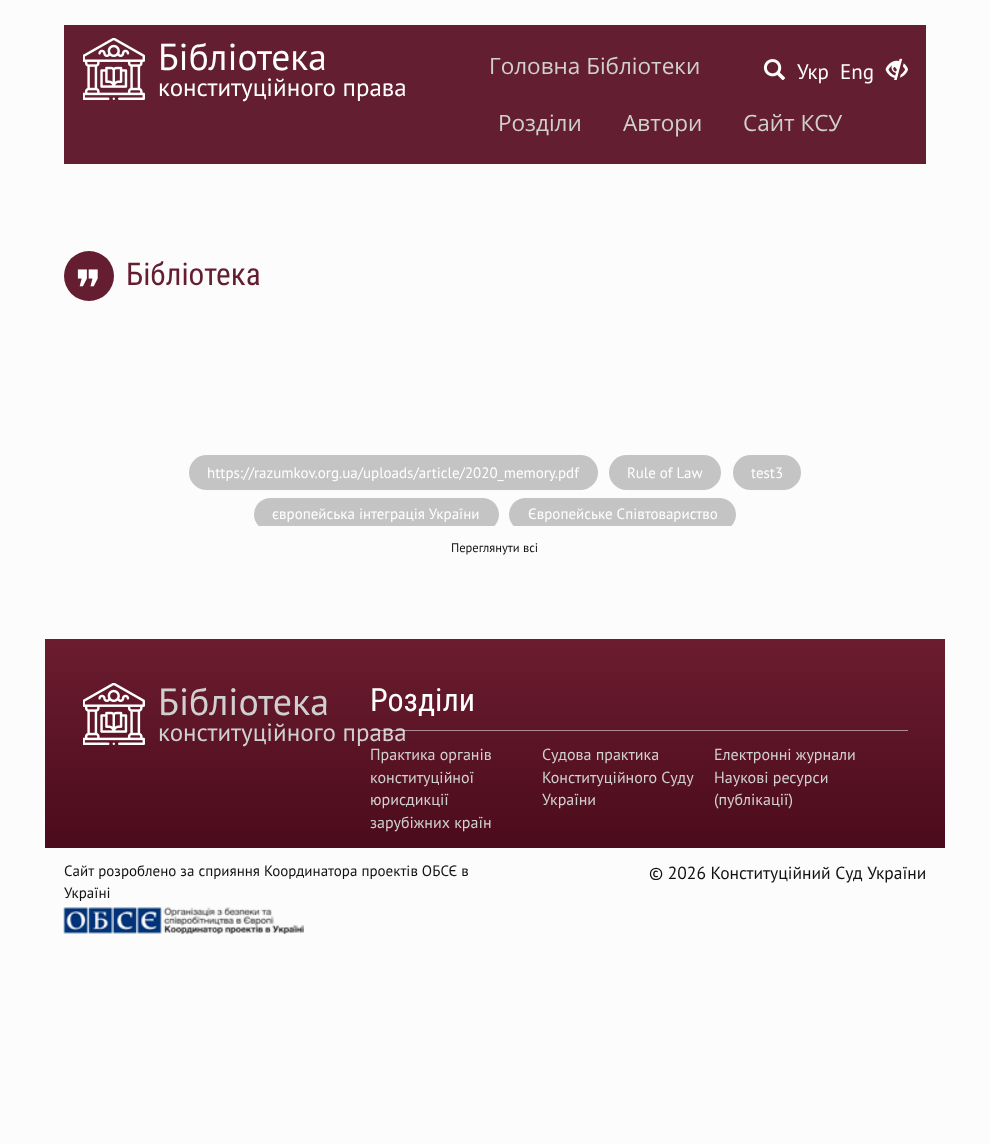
<!DOCTYPE html>
<meta charset="utf-8">
<style>body { margin: 0 } canvas { display: block }</style>
<canvas id="canvas" width="990" height="1144"></canvas>
<img id="img1" src="images/1.png" hidden>
<img id="img2" src="images/2.png" hidden>
<img id="img3" src="images/3.png" hidden>
<img id="img4" src="images/4.png" hidden>
<img id="img5" src="images/5.png" hidden>
<script>
window.onload = function () {
    const canvas = document.getElementById('canvas');
    const context = canvas.getContext('2d');
    context.miterLimit = 4;
    context.fontKerning = 'normal';
    let gradient;

    context.fillStyle = 'rgb(252, 252, 252)';
    context.fillRect(0, 0, 990, 1144);
    context.fillStyle = 'rgb(100, 30, 49)';
    context.fillRect(64, 25, 862, 139);
    context.drawImage(document.getElementById('img1'), 83, 38, 62, 62);
    context.drawImage(document.getElementById('img2'), 763, 59, 22, 22);
    context.drawImage(document.getElementById('img3'), 885, 58, 23, 22);
    context.fillStyle = 'rgb(101, 29, 49)';
    context.beginPath();
    context.arc(89, 276, 25, 0, 2 * Math.PI);
    context.fill();
    context.fillStyle = 'rgb(196, 196, 196)';
    context.beginPath();
    context.roundRect(189, 455, 409, 35, 17.5);
    context.fill();
    context.beginPath();
    context.roundRect(609, 455, 112, 35, 17.5);
    context.fill();
    context.beginPath();
    context.roundRect(733, 455, 68, 35, 17.5);
    context.fill();
    context.save();
    context.beginPath();
    context.rect(175, 451, 640, 75);
    context.clip();
    context.beginPath();
    context.roundRect(254, 498, 245, 33, 16.5);
    context.fill();
    context.beginPath();
    context.roundRect(509, 498, 227, 33, 16.5);
    context.fill();
    context.restore();
    gradient = context.createLinearGradient(495, 639, 495, 848);
    gradient.addColorStop(0, 'rgb(107, 29, 47)');
    gradient.addColorStop(1, 'rgb(75, 11, 28)');
    context.fillStyle = gradient;
    context.fillRect(45, 639, 900, 209);
    context.drawImage(document.getElementById('img4'), 83, 683, 62, 62);
    context.drawImage(document.getElementById('img5'), 63, 907, 241, 27);
    context.font = '37.5px PT Sans';
    context.fillStyle = 'rgb(255, 255, 255)';
    context.fillText('Бібліотека', 158, 70);
    context.font = '25px PT Sans';
    context.fillText('конституційного права', 158, 96);
    context.font = '22.5px Open Sans';
    context.fillStyle = 'rgb(208, 208, 208)';
    context.fillText('Головна Бібліотеки', 489, 74);
    context.fillText('Розділи', 498, 131);
    context.fillText('Автори', 623, 131);
    context.fillText('Сайт КСУ', 743, 131);
    context.font = '21px PT Sans';
    context.fillStyle = 'rgb(255, 255, 255)';
    context.fillText('Укр', 797, 79);
    context.fillText('Eng', 840, 79);
    context.font = '50px DejaVu Sans';
    context.fillText('❞', 75, 306);
    context.font = '31.25px Roboto Condensed';
    context.fillStyle = 'rgb(100, 30, 49)';
    context.fillText('Бібліотека', 126, 285);
    context.font = '15px PT Sans';
    context.fillStyle = 'rgb(255, 255, 255)';
    context.fillText('https://razumkov.org.ua/uploads/article/2020_memory.pdf', 207, 478);
    context.fillText('Rule of Law', 627, 478);
    context.fillText('test3', 751, 478);
    context.fillText('європейська інтеграція України', 272, 519);
    context.fillText('Європейське Співтовариство', 528, 519);
    context.font = '12.5px PT Sans';
    context.fillStyle = 'rgb(17, 17, 17)';
    context.fillText('Переглянути всі', 451, 552);
    context.font = '38px PT Sans';
    context.fillStyle = 'rgb(208, 208, 208)';
    context.fillText('Бібліотека', 158, 715);
    context.font = '25px PT Sans';
    context.fillText('конституційного права', 158, 741);
    context.fillStyle = 'rgba(255, 255, 255, 0.5)';
    context.fillRect(370, 730, 538, 1);
    context.font = '32px Roboto Condensed';
    context.fillStyle = 'rgb(255, 255, 255)';
    context.fillText('Розділи', 370, 711);
    context.font = '16px PT Sans';
    context.fillStyle = 'rgb(208, 208, 208)';
    context.fillText('Практика органів', 370, 760);
    context.fillText('конституційної', 370, 783);
    context.fillText('юрисдикції', 370, 805);
    context.fillText('зарубіжних країн', 370, 828);
    context.fillText('Судова практика', 542, 760);
    context.fillText('Конституційного Суду', 542, 783);
    context.fillText('України', 542, 805);
    context.fillText('Електронні журнали', 714, 760);
    context.fillText('Наукові ресурси', 714, 783);
    context.fillText('(публікації)', 714, 805);
    context.font = '15px PT Sans';
    context.fillStyle = 'rgb(17, 17, 17)';
    context.fillText('Сайт розроблено за сприяння Координатора проектів ОБСЄ в', 64, 876);
    context.fillText('Україні', 64, 898);
    context.font = '17.5px PT Sans';
    context.fillText('© 2026 Конституційний Суд України', 649, 879);
};
</script>
